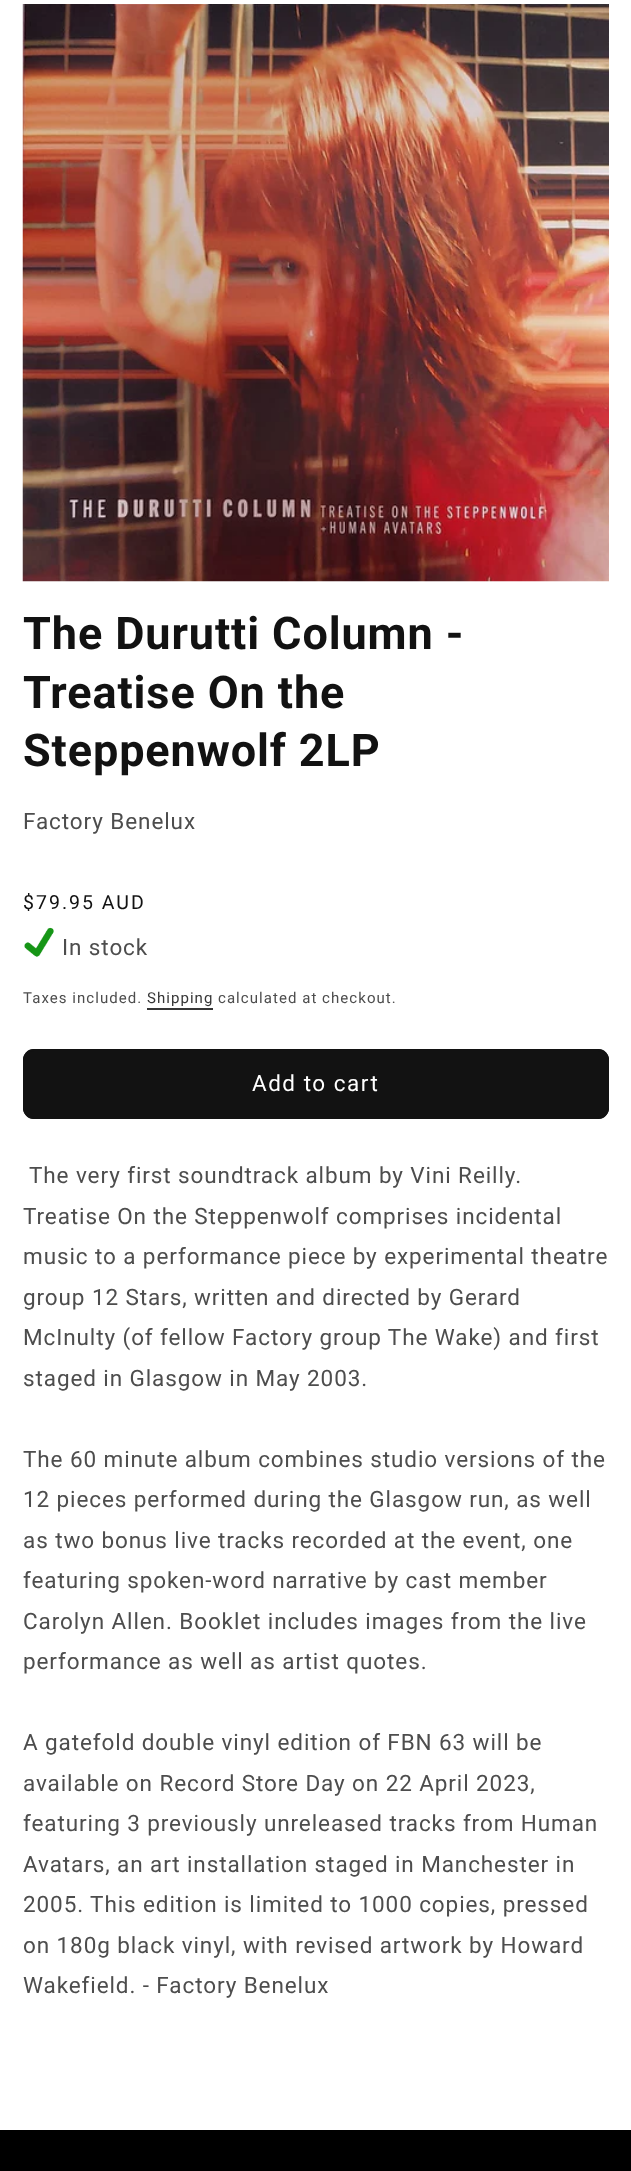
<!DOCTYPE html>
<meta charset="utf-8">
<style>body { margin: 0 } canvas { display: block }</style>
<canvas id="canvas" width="631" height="2171"></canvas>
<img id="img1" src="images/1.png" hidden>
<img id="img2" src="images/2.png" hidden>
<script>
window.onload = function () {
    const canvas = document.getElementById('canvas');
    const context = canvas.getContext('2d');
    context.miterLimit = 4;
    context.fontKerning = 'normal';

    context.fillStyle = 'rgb(255, 255, 255)';
    context.fillRect(0, 0, 631, 2171);
    context.drawImage(document.getElementById('img1'), 22, 4, 587, 578);
    context.drawImage(document.getElementById('img2'), 24, 927, 30, 30);
    context.fillStyle = 'rgb(54, 54, 54)';
    context.fillRect(147, 1008, 66, 2);
    context.fillStyle = 'rgb(18, 18, 18)';
    context.beginPath();
    context.roundRect(23, 1049, 586, 70, 11);
    context.fill();
    context.beginPath();
    context.roundRect(24, 1050, 584, 68, 10);
    context.strokeStyle = 'rgb(18, 18, 18)';
    context.lineWidth = 2;
    context.stroke();
    context.fillStyle = 'rgb(0, 0, 0)';
    context.fillRect(0, 2130, 631, 41);
    context.letterSpacing = '0.9px';
    context.font = 'bold 45px Roboto';
    context.fillStyle = 'rgb(18, 18, 18)';
    context.fillText('The Durutti Column -', 23, 649);
    context.fillText('Treatise On the', 23, 708);
    context.fillText('Steppenwolf 2LP', 23, 766);
    context.font = '22.5px Roboto';
    context.fillStyle = 'rgb(77, 77, 77)';
    context.fillText('Factory Benelux', 23, 829);
    context.letterSpacing = '2px';
    context.font = '19.5px Roboto';
    context.fillStyle = 'rgb(18, 18, 18)';
    context.fillText('$79.95 AUD', 23, 909);
    context.letterSpacing = '0.9px';
    context.font = '22.5px Roboto';
    context.fillStyle = 'rgb(77, 77, 77)';
    context.fillText('In stock', 62, 955);
    context.letterSpacing = '1.05px';
    context.font = '15px Roboto';
    context.fillText('Taxes included.', 23, 1003);
    context.fillStyle = 'rgb(54, 54, 54)';
    context.fillText('Shipping', 147, 1003);
    context.fillStyle = 'rgb(77, 77, 77)';
    context.fillText('calculated at checkout.', 218, 1003);
    context.letterSpacing = '1.5px';
    context.font = '22.5px Roboto';
    context.fillStyle = 'rgb(255, 255, 255)';
    context.fillText('Add to cart', 252, 1091);
    context.letterSpacing = '0.9px';
    context.fillStyle = 'rgb(77, 77, 77)';
    context.fillText('The very first soundtrack album by Vini Reilly.', 29, 1183);
    context.fillText('Treatise On the Steppenwolf comprises incidental', 23, 1224);
    context.fillText('music to a performance piece by experimental theatre', 23, 1264);
    context.fillText('group 12 Stars, written and directed by Gerard', 23, 1305);
    context.fillText('McInulty (of fellow Factory group The Wake) and first', 23, 1345);
    context.fillText('staged in Glasgow in May 2003.', 23, 1386);
    context.fillText('The 60 minute album combines studio versions of the', 23, 1467);
    context.fillText('12 pieces performed during the Glasgow run, as well', 23, 1507);
    context.fillText('as two bonus live tracks recorded at the event, one', 23, 1548);
    context.fillText('featuring spoken-word narrative by cast member', 23, 1588);
    context.fillText('Carolyn Allen. Booklet includes images from the live', 23, 1629);
    context.fillText('performance as well as artist quotes.', 23, 1669);
    context.fillText('A gatefold double vinyl edition of FBN 63 will be', 23, 1750);
    context.fillText('available on Record Store Day on 22 April 2023,', 23, 1791);
    context.fillText('featuring 3 previously unreleased tracks from Human', 23, 1831);
    context.fillText('Avatars, an art installation staged in Manchester in', 23, 1872);
    context.fillText('2005. This edition is limited to 1000 copies, pressed', 23, 1912);
    context.fillText('on 180g black vinyl, with revised artwork by Howard', 23, 1953);
    context.fillText('Wakefield. - Factory Benelux', 23, 1993);
};
</script>
